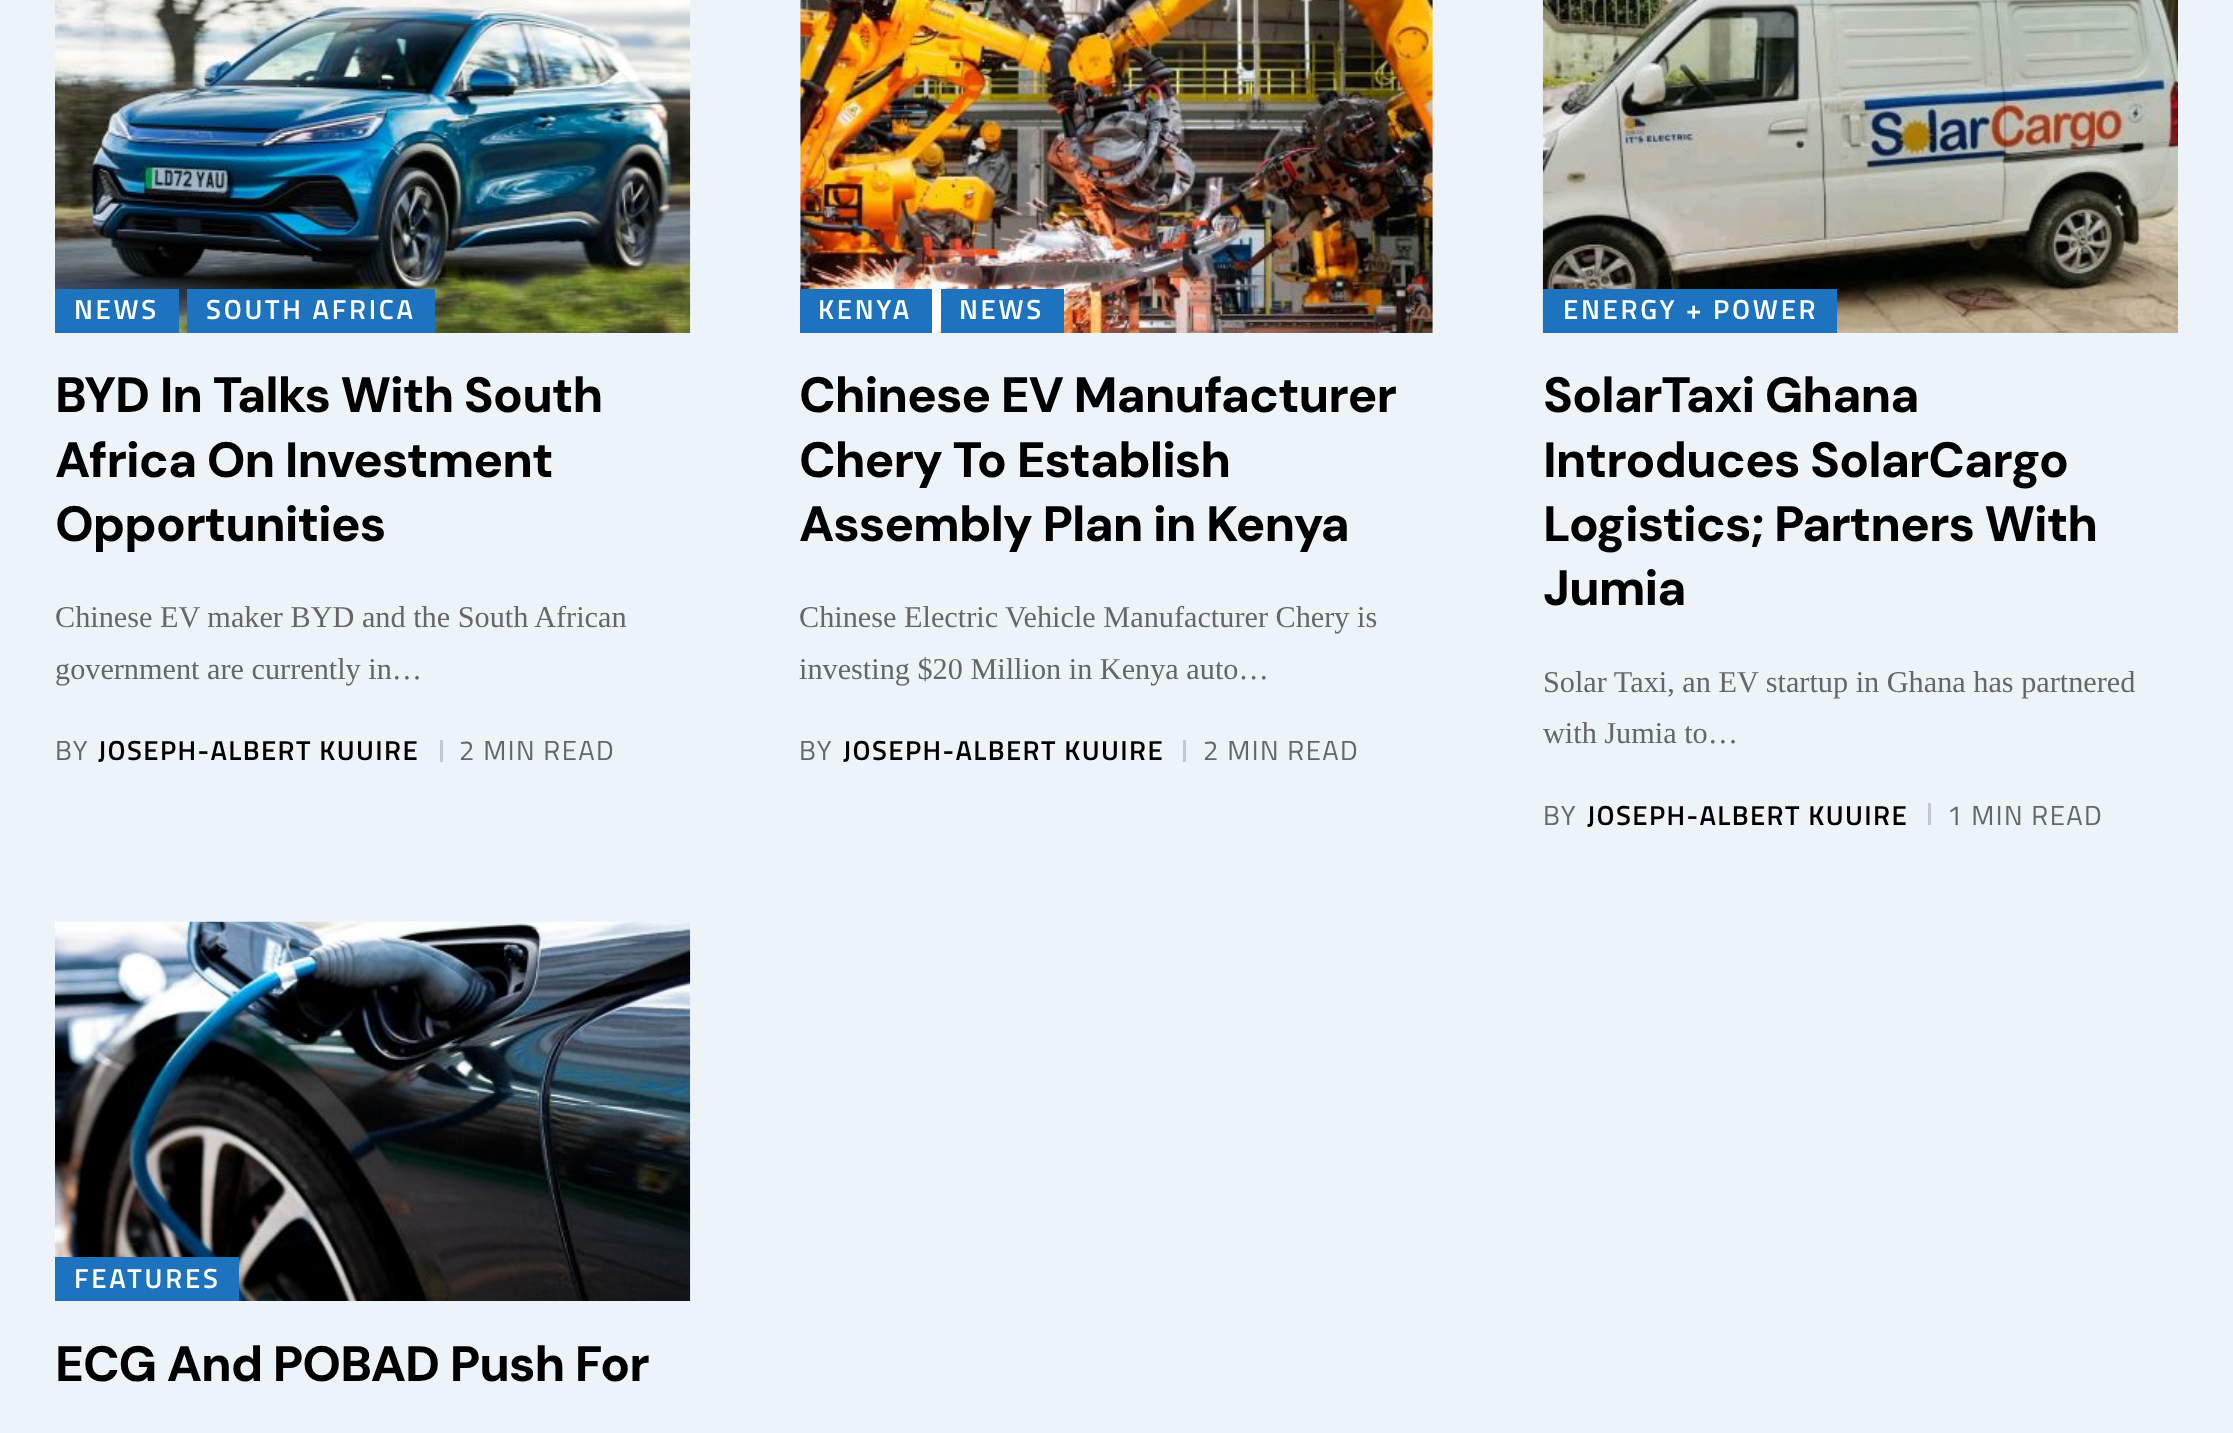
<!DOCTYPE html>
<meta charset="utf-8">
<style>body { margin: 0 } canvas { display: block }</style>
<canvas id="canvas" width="2233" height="1433"></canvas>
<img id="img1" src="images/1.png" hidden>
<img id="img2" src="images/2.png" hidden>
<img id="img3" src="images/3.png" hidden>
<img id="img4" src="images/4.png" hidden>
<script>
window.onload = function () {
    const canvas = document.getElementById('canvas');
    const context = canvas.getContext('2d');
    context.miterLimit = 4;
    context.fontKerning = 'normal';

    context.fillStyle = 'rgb(237, 244, 249)';
    context.fillRect(0, 0, 2233, 1433);
    context.drawImage(document.getElementById('img1'), 55, 0, 636, 333);
    context.fillStyle = 'rgb(30, 115, 190)';
    context.fillRect(55, 289, 124, 44);
    context.fillRect(187, 289, 248, 44);
    context.fillStyle = 'rgb(197, 201, 205)';
    context.fillRect(440, 740, 3, 22);
    context.drawImage(document.getElementById('img2'), 800, 0, 633, 333);
    context.fillStyle = 'rgb(30, 115, 190)';
    context.fillRect(800, 289, 132, 44);
    context.fillRect(941, 289, 123, 44);
    context.fillStyle = 'rgb(197, 201, 205)';
    context.fillRect(1183, 740, 3, 22);
    context.drawImage(document.getElementById('img3'), 1542, 0, 636, 333);
    context.fillStyle = 'rgb(30, 115, 190)';
    context.fillRect(1543, 289, 294, 44);
    context.fillStyle = 'rgb(197, 201, 205)';
    context.fillRect(1928, 803, 3, 22);
    context.drawImage(document.getElementById('img4'), 55, 921, 636, 380);
    context.fillStyle = 'rgb(30, 115, 190)';
    context.fillRect(55, 1257, 184, 44);
    context.letterSpacing = '2.75px';
    context.font = '600 27.5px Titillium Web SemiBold';
    context.fillStyle = 'rgb(255, 255, 255)';
    context.fillText('NEWS', 74, 319);
    context.fillText('SOUTH AFRICA', 206, 319);
    context.letterSpacing = '-1px';
    context.font = '800 49.5px DM Sans';
    context.fillStyle = 'rgb(0, 0, 0)';
    context.fillText('BYD In Talks With South', 55, 412);
    context.fillText('Africa On Investment', 55, 477);
    context.fillText('Opportunities', 55, 541);
    context.letterSpacing = '0px';
    context.font = '30.25px Liberation Serif';
    context.fillStyle = 'rgb(102, 102, 102)';
    context.fillText('Chinese EV maker BYD and the South African', 55, 627);
    context.fillText('government are currently in…', 55, 679);
    context.letterSpacing = '1.4px';
    context.font = '27.5px Titillium Web';
    context.fillText('BY', 55, 760);
    context.font = '600 27.5px Titillium Web SemiBold';
    context.fillStyle = 'rgb(0, 0, 0)';
    context.fillText('JOSEPH-ALBERT KUUIRE', 98, 760);
    context.font = '27.5px Titillium Web';
    context.fillStyle = 'rgb(102, 102, 102)';
    context.fillText('2 MIN READ', 459, 760);
    context.letterSpacing = '2.75px';
    context.font = '600 27.5px Titillium Web SemiBold';
    context.fillStyle = 'rgb(255, 255, 255)';
    context.fillText('KENYA', 818, 319);
    context.fillText('NEWS', 959, 319);
    context.letterSpacing = '-1px';
    context.font = '800 49.5px DM Sans';
    context.fillStyle = 'rgb(0, 0, 0)';
    context.fillText('Chinese EV Manufacturer', 799, 412);
    context.fillText('Chery To Establish', 799, 477);
    context.fillText('Assembly Plan in Kenya', 799, 541);
    context.letterSpacing = '0px';
    context.font = '30.25px Liberation Serif';
    context.fillStyle = 'rgb(102, 102, 102)';
    context.fillText('Chinese Electric Vehicle Manufacturer Chery is', 799, 627);
    context.fillText('investing $20 Million in Kenya auto…', 799, 679);
    context.letterSpacing = '1.4px';
    context.font = '27.5px Titillium Web';
    context.fillText('BY', 799, 760);
    context.font = '600 27.5px Titillium Web SemiBold';
    context.fillStyle = 'rgb(0, 0, 0)';
    context.fillText('JOSEPH-ALBERT KUUIRE', 843, 760);
    context.font = '27.5px Titillium Web';
    context.fillStyle = 'rgb(102, 102, 102)';
    context.fillText('2 MIN READ', 1203, 760);
    context.letterSpacing = '2.75px';
    context.font = '600 27.5px Titillium Web SemiBold';
    context.fillStyle = 'rgb(255, 255, 255)';
    context.fillText('ENERGY + POWER', 1563, 319);
    context.letterSpacing = '-1px';
    context.font = '800 49.5px DM Sans';
    context.fillStyle = 'rgb(0, 0, 0)';
    context.fillText('SolarTaxi Ghana', 1543, 412);
    context.fillText('Introduces SolarCargo', 1543, 477);
    context.fillText('Logistics; Partners With', 1543, 541);
    context.fillText('Jumia', 1543, 605);
    context.letterSpacing = '0px';
    context.font = '30.25px Liberation Serif';
    context.fillStyle = 'rgb(102, 102, 102)';
    context.fillText('Solar Taxi, an EV startup in Ghana has partnered', 1543, 692);
    context.fillText('with Jumia to…', 1543, 743);
    context.letterSpacing = '1.4px';
    context.font = '27.5px Titillium Web';
    context.fillText('BY', 1543, 825);
    context.font = '600 27.5px Titillium Web SemiBold';
    context.fillStyle = 'rgb(0, 0, 0)';
    context.fillText('JOSEPH-ALBERT KUUIRE', 1587, 825);
    context.font = '27.5px Titillium Web';
    context.fillStyle = 'rgb(102, 102, 102)';
    context.fillText('1 MIN READ', 1947, 825);
    context.letterSpacing = '2.75px';
    context.font = '600 27.5px Titillium Web SemiBold';
    context.fillStyle = 'rgb(255, 255, 255)';
    context.fillText('FEATURES', 74, 1288);
    context.letterSpacing = '-1px';
    context.font = '800 49.5px DM Sans';
    context.fillStyle = 'rgb(0, 0, 0)';
    context.fillText('ECG And POBAD Push For', 55, 1381);
};
</script>
